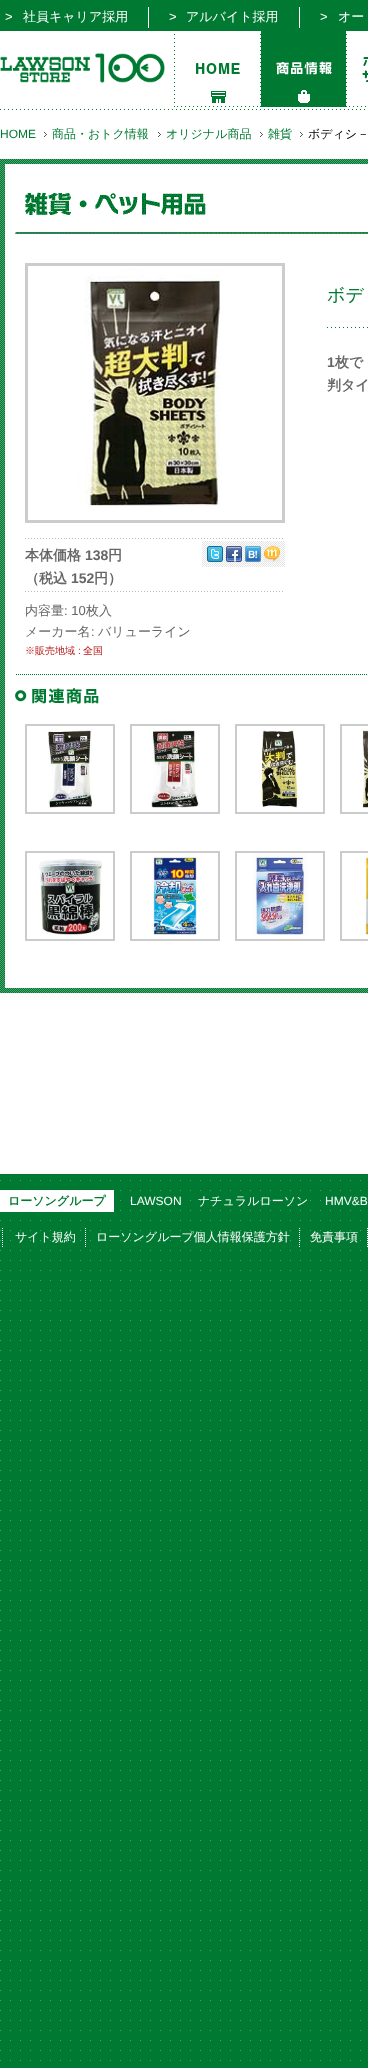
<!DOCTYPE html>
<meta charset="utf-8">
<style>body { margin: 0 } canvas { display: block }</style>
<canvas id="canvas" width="368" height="2068"></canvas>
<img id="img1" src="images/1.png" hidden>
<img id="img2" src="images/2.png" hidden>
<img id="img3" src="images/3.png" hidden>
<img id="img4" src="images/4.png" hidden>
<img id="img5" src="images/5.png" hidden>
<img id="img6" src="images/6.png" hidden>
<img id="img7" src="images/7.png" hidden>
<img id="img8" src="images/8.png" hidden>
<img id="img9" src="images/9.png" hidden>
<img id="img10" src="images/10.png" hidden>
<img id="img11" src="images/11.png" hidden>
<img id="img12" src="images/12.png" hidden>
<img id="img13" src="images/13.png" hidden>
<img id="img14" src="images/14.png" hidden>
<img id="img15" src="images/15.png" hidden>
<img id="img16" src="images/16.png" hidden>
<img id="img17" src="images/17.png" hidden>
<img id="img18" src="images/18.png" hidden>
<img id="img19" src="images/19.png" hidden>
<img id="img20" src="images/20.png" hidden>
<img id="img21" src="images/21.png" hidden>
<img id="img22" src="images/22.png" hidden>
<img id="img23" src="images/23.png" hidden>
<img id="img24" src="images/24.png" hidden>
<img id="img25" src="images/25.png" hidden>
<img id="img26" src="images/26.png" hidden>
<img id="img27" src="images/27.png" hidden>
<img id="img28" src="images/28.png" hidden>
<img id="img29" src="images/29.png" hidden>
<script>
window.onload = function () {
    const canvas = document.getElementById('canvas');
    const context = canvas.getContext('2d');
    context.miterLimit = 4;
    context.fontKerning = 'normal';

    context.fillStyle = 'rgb(0, 122, 50)';
    context.fillRect(0, 0, 368, 2068);
    context.drawImage(document.getElementById('img1'), 0, 1174, 361, 887);
    context.fillStyle = 'rgb(255, 255, 255)';
    context.fillRect(0, 31, 368, 1143);
    context.drawImage(document.getElementById('img2'), 0, 109, 365, 1);
    context.fillRect(148, 7, 1, 21);
    context.fillRect(299, 7, 1, 21);
    context.drawImage(document.getElementById('img3'), 0, 53, 165, 30);
    context.drawImage(document.getElementById('img4'), 174, 34, 1, 73);
    context.drawImage(document.getElementById('img4'), 260, 34, 1, 73);
    context.drawImage(document.getElementById('img5'), 177, 63, 81, 44);
    context.drawImage(document.getElementById('img4'), 346, 34, 1, 73);
    context.drawImage(document.getElementById('img6'), 261, 31, 85, 76);
    context.drawImage(document.getElementById('img7'), 349, 57, 19, 50);
    context.drawImage(document.getElementById('img8'), 44, 132, 3, 5);
    context.drawImage(document.getElementById('img8'), 158, 132, 3, 5);
    context.drawImage(document.getElementById('img8'), 260, 132, 3, 5);
    context.drawImage(document.getElementById('img8'), 300, 132, 3, 5);
    context.drawImage(document.getElementById('img9'), 0, 159, 368, 834);
    context.fillRect(5, 164, 363, 824);
    context.drawImage(document.getElementById('img10'), 15, 192, 353, 42);
    context.drawImage(document.getElementById('img11'), 327, 327, 41, 1);
    context.fillStyle = 'rgb(204, 204, 204)';
    context.fillRect(25, 263, 260, 260);
    context.strokeStyle = 'rgb(255, 255, 255)';
    context.strokeRect(28.5, 266.5, 253, 253);
    context.drawImage(document.getElementById('img12'), 29, 267, 252, 252);
    context.drawImage(document.getElementById('img13'), 25, 538, 258, 1);
    context.drawImage(document.getElementById('img14'), 202, 541, 83, 26);
    context.drawImage(document.getElementById('img15'), 207, 546, 16, 16);
    context.drawImage(document.getElementById('img16'), 226, 546, 16, 16);
    context.drawImage(document.getElementById('img17'), 245, 546, 16, 16);
    context.drawImage(document.getElementById('img18'), 264, 546, 16, 16);
    context.drawImage(document.getElementById('img13'), 25, 591, 258, 1);
    context.drawImage(document.getElementById('img19'), 16, 674, 351, 1);
    context.drawImage(document.getElementById('img20'), 15, 688, 84, 16);
    context.strokeStyle = 'rgb(203, 203, 203)';
    context.lineWidth = 2;
    context.strokeRect(26, 725, 88, 88);
    context.drawImage(document.getElementById('img21'), 48, 729, 44, 79);
    context.strokeRect(131, 725, 88, 88);
    context.drawImage(document.getElementById('img22'), 151, 730, 49, 78);
    context.strokeRect(236, 725, 88, 88);
    context.drawImage(document.getElementById('img23'), 259, 729, 42, 79);
    context.strokeRect(341, 725, 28, 88);
    context.drawImage(document.getElementById('img24'), 362, 730, 6, 78);
    context.strokeRect(26, 852, 88, 88);
    context.drawImage(document.getElementById('img25'), 39, 859, 64, 76);
    context.strokeRect(131, 852, 88, 88);
    context.drawImage(document.getElementById('img26'), 153, 853, 44, 82);
    context.strokeRect(236, 852, 88, 88);
    context.drawImage(document.getElementById('img27'), 253, 853, 55, 82);
    context.strokeRect(341, 852, 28, 88);
    context.drawImage(document.getElementById('img28'), 363, 853, 5, 82);
    context.fillStyle = 'rgb(255, 255, 255)';
    context.fillRect(0, 1190, 114, 22);
    context.drawImage(document.getElementById('img29'), 2, 1228, 1, 19);
    context.drawImage(document.getElementById('img29'), 85, 1228, 1, 19);
    context.drawImage(document.getElementById('img29'), 299, 1228, 1, 19);
    context.drawImage(document.getElementById('img29'), 367, 1228, 1, 19);
    context.font = '13px Liberation Sans';
    context.fillText('>', 5, 21);
    context.font = '500 13px WenQuanYi Zen Hei';
    context.fillText('社員キャリア採用', 23, 21);
    context.font = '13px Liberation Sans';
    context.fillText('>', 169, 21);
    context.font = '500 13px WenQuanYi Zen Hei';
    context.fillText('アルバイト採用', 186, 21);
    context.font = '13px Liberation Sans';
    context.fillText('>', 320, 21);
    context.font = '500 13px WenQuanYi Zen Hei';
    context.fillText('オー', 338, 21);
    context.font = '12px Liberation Sans';
    context.fillStyle = 'rgb(0, 122, 50)';
    context.fillText('HOME', 0, 138);
    context.font = '500 12px WenQuanYi Zen Hei';
    context.fillText('商品・おトク情報', 52, 138);
    context.fillText('オリジナル商品', 166, 138);
    context.fillText('雑貨', 268, 138);
    context.fillStyle = 'rgb(0, 0, 0)';
    context.fillText('ボディシ－', 308, 138);
    context.font = '500 18px WenQuanYi Zen Hei';
    context.fillStyle = 'rgb(0, 122, 50)';
    context.fillText('ボデ', 327, 301);
    context.font = 'bold 14px Liberation Sans';
    context.fillStyle = 'rgb(102, 102, 102)';
    context.fillText('1', 327, 367);
    context.font = 'bold 14px WenQuanYi Zen Hei';
    context.fillText('枚で', 335, 367);
    context.fillText('判タイ', 327, 390);
    context.fillText('本体価格', 25, 560);
    context.font = 'bold 14px Liberation Sans';
    context.fillText('138', 85, 560);
    context.font = 'bold 14px WenQuanYi Zen Hei';
    context.fillText('円', 108, 560);
    context.fillText('（税込', 25, 583);
    context.font = 'bold 14px Liberation Sans';
    context.fillText('152', 71, 583);
    context.font = 'bold 14px WenQuanYi Zen Hei';
    context.fillText('円）', 94, 583);
    context.font = '500 13px WenQuanYi Zen Hei';
    context.fillText('内容量', 25, 615);
    context.font = '13px Liberation Sans';
    context.fillText(': 10', 64, 615);
    context.font = '500 13px WenQuanYi Zen Hei';
    context.fillText('枚入', 86, 615);
    context.fillText('メーカー名', 25, 636);
    context.font = '13px Liberation Sans';
    context.fillText(':', 91, 636);
    context.font = '500 13px WenQuanYi Zen Hei';
    context.fillText('バリューライン', 98, 636);
    context.font = '500 10px WenQuanYi Zen Hei';
    context.fillStyle = 'rgb(181, 24, 24)';
    context.fillText('※販売地域', 25, 654);
    context.font = '10px Liberation Sans';
    context.fillText(':', 78, 654);
    context.font = '500 10px WenQuanYi Zen Hei';
    context.fillText('全国', 83, 654);
    context.font = 'bold 12px WenQuanYi Zen Hei';
    context.fillStyle = 'rgb(0, 122, 50)';
    context.fillText('ローソングループ', 8, 1205);
    context.font = '12px Liberation Sans';
    context.fillStyle = 'rgb(255, 255, 255)';
    context.fillText('LAWSON', 130, 1205);
    context.font = '500 12px WenQuanYi Zen Hei';
    context.fillText('ナチュラルローソン', 198, 1205);
    context.font = '12px Liberation Sans';
    context.fillText('HMV&B', 325, 1205);
    context.font = '500 12px WenQuanYi Zen Hei';
    context.fillText('サイト規約', 15, 1241);
    context.fillText('ローソングループ個人情報保護方針', 96, 1241);
    context.fillText('免責事項', 310, 1241);
};
</script>
